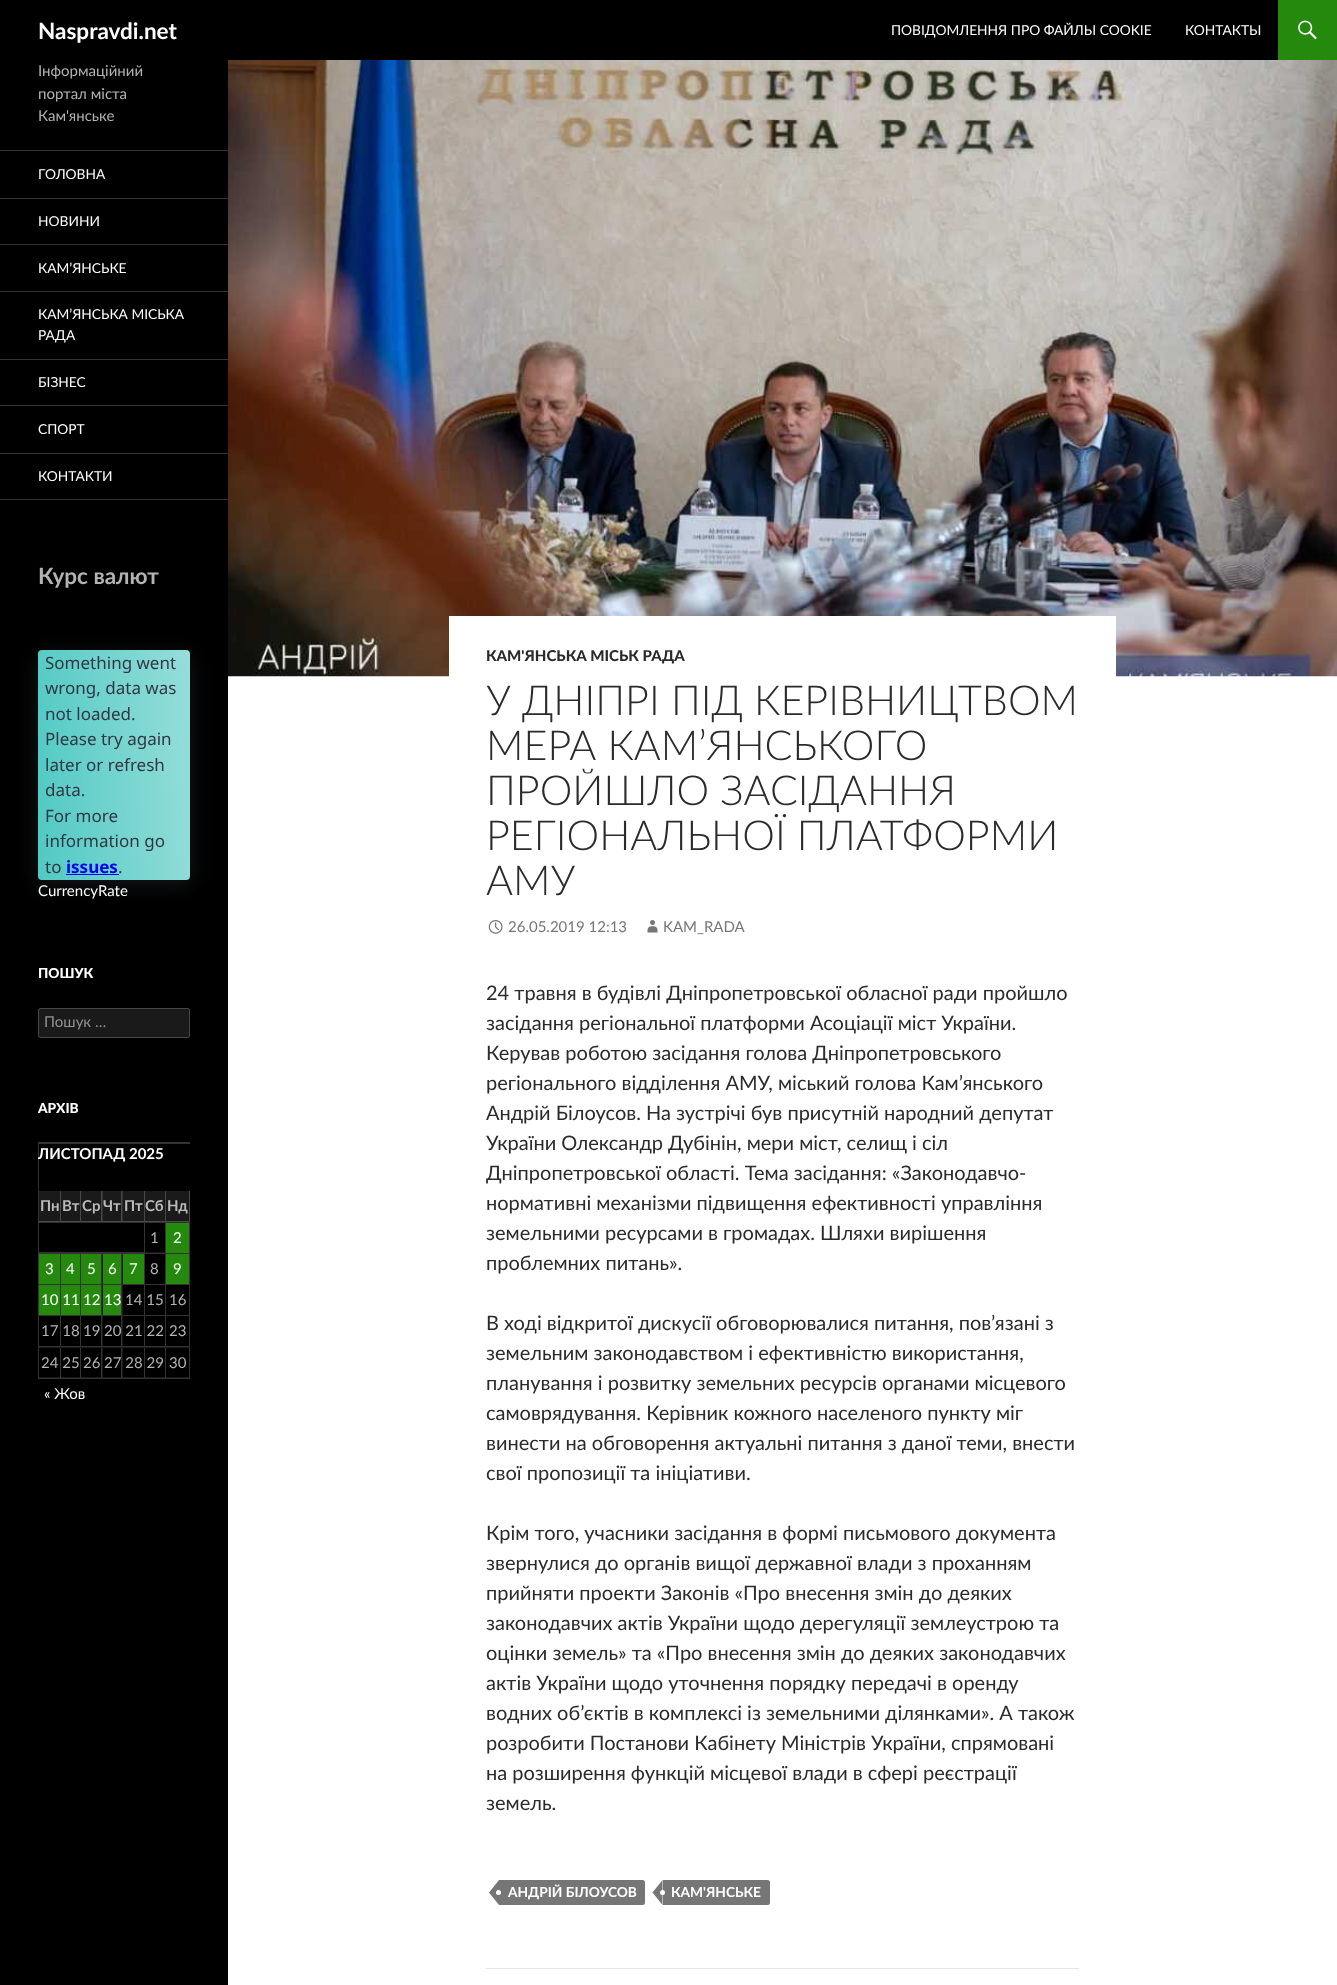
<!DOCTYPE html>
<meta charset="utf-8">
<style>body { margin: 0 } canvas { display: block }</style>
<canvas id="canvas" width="1337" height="1985"></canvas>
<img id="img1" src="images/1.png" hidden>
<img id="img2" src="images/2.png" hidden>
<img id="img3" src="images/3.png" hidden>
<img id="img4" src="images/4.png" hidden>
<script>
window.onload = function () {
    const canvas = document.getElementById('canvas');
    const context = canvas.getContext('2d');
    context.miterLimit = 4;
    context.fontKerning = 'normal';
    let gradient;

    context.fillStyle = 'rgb(255, 255, 255)';
    context.fillRect(0, 0, 1337, 1985);
    context.fillStyle = 'rgb(0, 0, 0)';
    context.fillRect(0, 0, 1278, 60);
    context.fillStyle = 'rgb(36, 137, 13)';
    context.fillRect(1278, 0, 59, 60);
    context.drawImage(document.getElementById('img1'), 1298, 20, 19, 20);
    context.fillStyle = 'rgb(0, 0, 0)';
    context.fillRect(0, 60, 228, 1925);
    context.fillStyle = 'rgb(51, 51, 51)';
    context.fillRect(0, 499, 228, 1);
    context.fillRect(0, 150, 228, 1);
    context.fillRect(0, 198, 228, 1);
    context.fillRect(0, 244, 228, 1);
    context.fillRect(0, 291, 228, 1);
    context.fillRect(0, 359, 228, 1);
    context.fillRect(0, 405, 228, 1);
    context.fillRect(0, 453, 228, 1);
    context.fillStyle = 'rgba(48, 55, 66, 0.4)';
    context.filter = 'blur(10px)';
    context.beginPath();
    context.roundRect(38, 655, 152, 230, 4);
    context.fill();
    context.filter = 'none';
    gradient = context.createLinearGradient(30, 771, 198, 759);
    gradient.addColorStop(0, 'rgb(80, 201, 195)');
    gradient.addColorStop(1, 'rgb(150, 222, 218)');
    context.fillStyle = gradient;
    context.beginPath();
    context.roundRect(38, 650, 152, 230, 4);
    context.fill();
    context.fillStyle = 'rgb(0, 0, 238)';
    context.fillRect(66, 874, 53, 1);
    context.fillStyle = 'rgb(26, 26, 26)';
    context.beginPath();
    context.roundRect(38, 1008, 152, 30, 2.5);
    context.fill();
    context.beginPath();
    context.roundRect(38.5, 1008.5, 151, 29, 2);
    context.strokeStyle = 'rgba(255, 255, 255, 0.2)';
    context.stroke();
    context.fillStyle = 'rgb(51, 51, 51)';
    context.beginPath();
    context.moveTo(38, 1142);
    context.lineTo(190, 1142);
    context.lineTo(190, 1144);
    context.lineTo(39, 1144);
    context.closePath();
    context.fill();
    context.fillStyle = 'rgba(255, 255, 255, 0.2)';
    context.beginPath();
    context.moveTo(38, 1379);
    context.lineTo(38, 1142);
    context.lineTo(39, 1144);
    context.lineTo(39, 1379);
    context.closePath();
    context.fill();
    context.fillStyle = 'rgb(26, 26, 26)';
    context.fillRect(39, 1191, 151, 32);
    context.fillStyle = 'rgb(72, 72, 72)';
    context.beginPath();
    context.moveTo(61, 1191);
    context.lineTo(61, 1222.5);
    context.lineTo(60, 1221);
    context.lineTo(60, 1191);
    context.closePath();
    context.fill();
    context.beginPath();
    context.moveTo(61, 1222.5);
    context.lineTo(39, 1222.5);
    context.lineTo(39, 1221);
    context.lineTo(60, 1221);
    context.closePath();
    context.moveTo(81, 1191);
    context.lineTo(81, 1222.5);
    context.lineTo(80, 1221);
    context.lineTo(80, 1191);
    context.closePath();
    context.fill();
    context.beginPath();
    context.moveTo(81, 1222.5);
    context.lineTo(61, 1222.5);
    context.lineTo(61, 1221);
    context.lineTo(80, 1221);
    context.closePath();
    context.moveTo(102.5, 1191);
    context.lineTo(102.5, 1222.5);
    context.lineTo(101, 1221);
    context.lineTo(101, 1191);
    context.closePath();
    context.fill();
    context.fillStyle = 'rgba(255, 255, 255, 0.2)';
    context.beginPath();
    context.moveTo(102.5, 1222.5);
    context.lineTo(81, 1222.5);
    context.lineTo(81, 1221);
    context.lineTo(101, 1221);
    context.closePath();
    context.fill();
    context.fillStyle = 'rgb(72, 72, 72)';
    context.beginPath();
    context.moveTo(122.5, 1191);
    context.lineTo(122.5, 1222.5);
    context.lineTo(121, 1221);
    context.lineTo(121, 1191);
    context.closePath();
    context.fill();
    context.fillStyle = 'rgba(255, 255, 255, 0.2)';
    context.beginPath();
    context.moveTo(122.5, 1222.5);
    context.lineTo(102.5, 1222.5);
    context.lineTo(102.5, 1221);
    context.lineTo(121, 1221);
    context.closePath();
    context.fill();
    context.fillStyle = 'rgb(72, 72, 72)';
    context.beginPath();
    context.moveTo(145, 1191);
    context.lineTo(145, 1222.5);
    context.lineTo(144, 1221);
    context.lineTo(144, 1191);
    context.closePath();
    context.fill();
    context.fillStyle = 'rgba(255, 255, 255, 0.2)';
    context.beginPath();
    context.moveTo(145, 1222.5);
    context.lineTo(122.5, 1222.5);
    context.lineTo(122.5, 1221);
    context.lineTo(144, 1221);
    context.closePath();
    context.fill();
    context.fillStyle = 'rgb(72, 72, 72)';
    context.beginPath();
    context.moveTo(166, 1191);
    context.lineTo(166, 1222.5);
    context.lineTo(165, 1221);
    context.lineTo(165, 1191);
    context.closePath();
    context.fill();
    context.beginPath();
    context.moveTo(166, 1222.5);
    context.lineTo(145, 1222.5);
    context.lineTo(145, 1221);
    context.lineTo(165, 1221);
    context.closePath();
    context.moveTo(190, 1191);
    context.lineTo(190, 1222.5);
    context.lineTo(189, 1221);
    context.lineTo(189, 1191);
    context.closePath();
    context.fill();
    context.beginPath();
    context.moveTo(190, 1222.5);
    context.lineTo(166, 1222.5);
    context.lineTo(166, 1221);
    context.lineTo(189, 1221);
    context.closePath();
    context.fill();
    context.fillStyle = 'rgb(51, 51, 51)';
    context.beginPath();
    context.moveTo(145, 1222.5);
    context.lineTo(145, 1254);
    context.lineTo(144, 1252.5);
    context.lineTo(144, 1222.5);
    context.closePath();
    context.fill();
    context.fillStyle = 'rgba(255, 255, 255, 0.2)';
    context.beginPath();
    context.moveTo(145, 1254);
    context.lineTo(39, 1254);
    context.lineTo(39, 1252);
    context.lineTo(144, 1252);
    context.closePath();
    context.fill();
    context.fillStyle = 'rgb(51, 51, 51)';
    context.beginPath();
    context.moveTo(166, 1222.5);
    context.lineTo(166, 1254);
    context.lineTo(165, 1252.5);
    context.lineTo(165, 1222.5);
    context.closePath();
    context.fill();
    context.fillStyle = 'rgba(255, 255, 255, 0.2)';
    context.beginPath();
    context.moveTo(166, 1254);
    context.lineTo(145, 1254);
    context.lineTo(145, 1252.5);
    context.lineTo(165, 1252.5);
    context.closePath();
    context.fill();
    context.fillStyle = 'rgb(51, 51, 51)';
    context.beginPath();
    context.moveTo(190, 1222.5);
    context.lineTo(190, 1254);
    context.lineTo(189, 1252.5);
    context.lineTo(189, 1222.5);
    context.closePath();
    context.fill();
    context.fillStyle = 'rgba(255, 255, 255, 0.2)';
    context.beginPath();
    context.moveTo(190, 1254);
    context.lineTo(166, 1254);
    context.lineTo(166, 1252.5);
    context.lineTo(189, 1252.5);
    context.closePath();
    context.fill();
    context.fillStyle = 'rgb(36, 137, 13)';
    context.fillRect(166, 1223, 23, 30);
    context.fillStyle = 'rgb(51, 51, 51)';
    context.beginPath();
    context.moveTo(61, 1254);
    context.lineTo(61, 1285);
    context.lineTo(60, 1284);
    context.lineTo(60, 1254);
    context.closePath();
    context.fill();
    context.fillStyle = 'rgba(255, 255, 255, 0.2)';
    context.beginPath();
    context.moveTo(61, 1285);
    context.lineTo(39, 1285);
    context.lineTo(39, 1284);
    context.lineTo(60, 1284);
    context.closePath();
    context.fill();
    context.fillStyle = 'rgb(36, 137, 13)';
    context.fillRect(39, 1254, 21, 30);
    context.fillStyle = 'rgb(51, 51, 51)';
    context.beginPath();
    context.moveTo(81, 1254);
    context.lineTo(81, 1285);
    context.lineTo(80, 1284);
    context.lineTo(80, 1254);
    context.closePath();
    context.fill();
    context.fillStyle = 'rgba(255, 255, 255, 0.2)';
    context.beginPath();
    context.moveTo(81, 1285);
    context.lineTo(61, 1285);
    context.lineTo(61, 1284);
    context.lineTo(80, 1284);
    context.closePath();
    context.fill();
    context.fillStyle = 'rgb(36, 137, 13)';
    context.fillRect(61, 1254, 19, 30);
    context.fillStyle = 'rgb(51, 51, 51)';
    context.beginPath();
    context.moveTo(102.5, 1254);
    context.lineTo(102.5, 1285);
    context.lineTo(101, 1284);
    context.lineTo(101, 1254);
    context.closePath();
    context.fill();
    context.fillStyle = 'rgba(255, 255, 255, 0.2)';
    context.beginPath();
    context.moveTo(102.5, 1285);
    context.lineTo(81, 1285);
    context.lineTo(81, 1284);
    context.lineTo(101, 1284);
    context.closePath();
    context.fill();
    context.fillStyle = 'rgb(36, 137, 13)';
    context.fillRect(81, 1254, 20, 30);
    context.fillStyle = 'rgb(51, 51, 51)';
    context.beginPath();
    context.moveTo(122.5, 1254);
    context.lineTo(122.5, 1285);
    context.lineTo(121, 1284);
    context.lineTo(121, 1254);
    context.closePath();
    context.fill();
    context.fillStyle = 'rgba(255, 255, 255, 0.2)';
    context.beginPath();
    context.moveTo(122.5, 1285);
    context.lineTo(102.5, 1285);
    context.lineTo(102.5, 1284);
    context.lineTo(121, 1284);
    context.closePath();
    context.fill();
    context.fillStyle = 'rgb(36, 137, 13)';
    context.fillRect(103, 1254, 18, 30);
    context.fillStyle = 'rgb(51, 51, 51)';
    context.beginPath();
    context.moveTo(145, 1254);
    context.lineTo(145, 1285);
    context.lineTo(144, 1284);
    context.lineTo(144, 1254);
    context.closePath();
    context.fill();
    context.fillStyle = 'rgba(255, 255, 255, 0.2)';
    context.beginPath();
    context.moveTo(145, 1285);
    context.lineTo(122.5, 1285);
    context.lineTo(122.5, 1284);
    context.lineTo(144, 1284);
    context.closePath();
    context.fill();
    context.fillStyle = 'rgb(36, 137, 13)';
    context.fillRect(123, 1254, 21, 30);
    context.fillStyle = 'rgb(51, 51, 51)';
    context.beginPath();
    context.moveTo(166, 1254);
    context.lineTo(166, 1285);
    context.lineTo(165, 1284);
    context.lineTo(165, 1254);
    context.closePath();
    context.fill();
    context.fillStyle = 'rgba(255, 255, 255, 0.2)';
    context.beginPath();
    context.moveTo(166, 1285);
    context.lineTo(145, 1285);
    context.lineTo(145, 1284);
    context.lineTo(165, 1284);
    context.closePath();
    context.fill();
    context.fillStyle = 'rgb(51, 51, 51)';
    context.beginPath();
    context.moveTo(190, 1254);
    context.lineTo(190, 1285);
    context.lineTo(189, 1284);
    context.lineTo(189, 1254);
    context.closePath();
    context.fill();
    context.fillStyle = 'rgba(255, 255, 255, 0.2)';
    context.beginPath();
    context.moveTo(190, 1285);
    context.lineTo(166, 1285);
    context.lineTo(166, 1284);
    context.lineTo(189, 1284);
    context.closePath();
    context.fill();
    context.fillStyle = 'rgb(36, 137, 13)';
    context.fillRect(166, 1254, 23, 30);
    context.fillStyle = 'rgb(51, 51, 51)';
    context.beginPath();
    context.moveTo(81, 1285);
    context.lineTo(81, 1316);
    context.lineTo(80, 1315);
    context.lineTo(80, 1285);
    context.closePath();
    context.fill();
    context.fillStyle = 'rgba(255, 255, 255, 0.2)';
    context.beginPath();
    context.moveTo(81, 1316);
    context.lineTo(61, 1316);
    context.lineTo(61, 1315);
    context.lineTo(80, 1315);
    context.closePath();
    context.fill();
    context.fillStyle = 'rgb(36, 137, 13)';
    context.fillRect(61, 1285, 19, 30);
    context.fillStyle = 'rgb(51, 51, 51)';
    context.beginPath();
    context.moveTo(166, 1285);
    context.lineTo(166, 1316);
    context.lineTo(165, 1315);
    context.lineTo(165, 1285);
    context.closePath();
    context.fill();
    context.fillStyle = 'rgba(255, 255, 255, 0.2)';
    context.beginPath();
    context.moveTo(166, 1316);
    context.lineTo(145, 1316);
    context.lineTo(145, 1315);
    context.lineTo(165, 1315);
    context.closePath();
    context.fill();
    context.fillStyle = 'rgb(51, 51, 51)';
    context.beginPath();
    context.moveTo(61, 1285);
    context.lineTo(61, 1316);
    context.lineTo(60, 1315);
    context.lineTo(60, 1285);
    context.closePath();
    context.fill();
    context.fillStyle = 'rgba(255, 255, 255, 0.2)';
    context.beginPath();
    context.moveTo(61, 1316);
    context.lineTo(39, 1316);
    context.lineTo(39, 1315);
    context.lineTo(60, 1315);
    context.closePath();
    context.fill();
    context.fillStyle = 'rgb(36, 137, 13)';
    context.fillRect(39, 1285, 21, 30);
    context.fillStyle = 'rgb(51, 51, 51)';
    context.beginPath();
    context.moveTo(102.5, 1285);
    context.lineTo(102.5, 1316);
    context.lineTo(101, 1315);
    context.lineTo(101, 1285);
    context.closePath();
    context.fill();
    context.fillStyle = 'rgba(255, 255, 255, 0.2)';
    context.beginPath();
    context.moveTo(102.5, 1316);
    context.lineTo(81, 1316);
    context.lineTo(81, 1315);
    context.lineTo(101, 1315);
    context.closePath();
    context.fill();
    context.fillStyle = 'rgb(36, 137, 13)';
    context.fillRect(81, 1285, 20, 30);
    context.fillStyle = 'rgb(51, 51, 51)';
    context.beginPath();
    context.moveTo(122.5, 1285);
    context.lineTo(122.5, 1316);
    context.lineTo(121, 1315);
    context.lineTo(121, 1285);
    context.closePath();
    context.fill();
    context.fillStyle = 'rgba(255, 255, 255, 0.2)';
    context.beginPath();
    context.moveTo(122.5, 1316);
    context.lineTo(102.5, 1316);
    context.lineTo(102.5, 1315);
    context.lineTo(121, 1315);
    context.closePath();
    context.fill();
    context.fillStyle = 'rgb(36, 137, 13)';
    context.fillRect(103, 1285, 18, 30);
    context.fillStyle = 'rgb(51, 51, 51)';
    context.beginPath();
    context.moveTo(145, 1285);
    context.lineTo(145, 1316);
    context.lineTo(144, 1315);
    context.lineTo(144, 1285);
    context.closePath();
    context.fill();
    context.fillStyle = 'rgba(255, 255, 255, 0.2)';
    context.beginPath();
    context.moveTo(145, 1316);
    context.lineTo(122.5, 1316);
    context.lineTo(122.5, 1315);
    context.lineTo(144, 1315);
    context.closePath();
    context.fill();
    context.fillStyle = 'rgb(51, 51, 51)';
    context.beginPath();
    context.moveTo(190, 1285);
    context.lineTo(190, 1316);
    context.lineTo(189, 1315);
    context.lineTo(189, 1285);
    context.closePath();
    context.fill();
    context.fillStyle = 'rgba(255, 255, 255, 0.2)';
    context.beginPath();
    context.moveTo(190, 1316);
    context.lineTo(166, 1316);
    context.lineTo(166, 1315);
    context.lineTo(189, 1315);
    context.closePath();
    context.fill();
    context.fillStyle = 'rgb(51, 51, 51)';
    context.beginPath();
    context.moveTo(61, 1316);
    context.lineTo(61, 1347.5);
    context.lineTo(60, 1346);
    context.lineTo(60, 1316);
    context.closePath();
    context.fill();
    context.beginPath();
    context.moveTo(61, 1347.5);
    context.lineTo(39, 1347.5);
    context.lineTo(39, 1346);
    context.lineTo(60, 1346);
    context.closePath();
    context.moveTo(81, 1316);
    context.lineTo(81, 1347.5);
    context.lineTo(80, 1346);
    context.lineTo(80, 1316);
    context.closePath();
    context.fill();
    context.beginPath();
    context.moveTo(81, 1347.5);
    context.lineTo(61, 1347.5);
    context.lineTo(61, 1346);
    context.lineTo(80, 1346);
    context.closePath();
    context.moveTo(102.5, 1316);
    context.lineTo(102.5, 1347.5);
    context.lineTo(101, 1346);
    context.lineTo(101, 1316);
    context.closePath();
    context.fill();
    context.beginPath();
    context.moveTo(145, 1316);
    context.lineTo(145, 1347.5);
    context.lineTo(144, 1346);
    context.lineTo(144, 1316);
    context.closePath();
    context.fill();
    context.beginPath();
    context.moveTo(122.5, 1316);
    context.lineTo(122.5, 1347.5);
    context.lineTo(121, 1346);
    context.lineTo(121, 1316);
    context.closePath();
    context.fill();
    context.fillStyle = 'rgba(255, 255, 255, 0.2)';
    context.beginPath();
    context.moveTo(102.5, 1347.5);
    context.lineTo(81, 1347.5);
    context.lineTo(81, 1346);
    context.lineTo(101, 1346);
    context.closePath();
    context.fill();
    context.beginPath();
    context.moveTo(122.5, 1347.5);
    context.lineTo(102.5, 1347.5);
    context.lineTo(102.5, 1346);
    context.lineTo(121, 1346);
    context.closePath();
    context.fill();
    context.beginPath();
    context.moveTo(145, 1347.5);
    context.lineTo(122.5, 1347.5);
    context.lineTo(122.5, 1346);
    context.lineTo(144, 1346);
    context.closePath();
    context.fill();
    context.fillStyle = 'rgb(51, 51, 51)';
    context.beginPath();
    context.moveTo(166, 1316);
    context.lineTo(166, 1347.5);
    context.lineTo(165, 1346);
    context.lineTo(165, 1316);
    context.closePath();
    context.fill();
    context.beginPath();
    context.moveTo(166, 1347.5);
    context.lineTo(145, 1347.5);
    context.lineTo(145, 1346);
    context.lineTo(165, 1346);
    context.closePath();
    context.moveTo(190, 1316);
    context.lineTo(190, 1347.5);
    context.lineTo(189, 1346);
    context.lineTo(189, 1316);
    context.closePath();
    context.fill();
    context.beginPath();
    context.moveTo(190, 1347.5);
    context.lineTo(166, 1347.5);
    context.lineTo(166, 1346);
    context.lineTo(189, 1346);
    context.closePath();
    context.fill();
    context.beginPath();
    context.moveTo(81, 1347.5);
    context.lineTo(81, 1379);
    context.lineTo(80, 1377.5);
    context.lineTo(80, 1347.5);
    context.closePath();
    context.fill();
    context.fillStyle = 'rgba(255, 255, 255, 0.2)';
    context.beginPath();
    context.moveTo(81, 1379);
    context.lineTo(61, 1379);
    context.lineTo(61, 1377.5);
    context.lineTo(80, 1377.5);
    context.closePath();
    context.fill();
    context.fillStyle = 'rgb(51, 51, 51)';
    context.beginPath();
    context.moveTo(145, 1347.5);
    context.lineTo(145, 1379);
    context.lineTo(144, 1377.5);
    context.lineTo(144, 1347.5);
    context.closePath();
    context.fill();
    context.beginPath();
    context.moveTo(122.5, 1347.5);
    context.lineTo(122.5, 1379);
    context.lineTo(121, 1377.5);
    context.lineTo(121, 1347.5);
    context.closePath();
    context.fill();
    context.beginPath();
    context.moveTo(102.5, 1347.5);
    context.lineTo(102.5, 1379);
    context.lineTo(101, 1377.5);
    context.lineTo(101, 1347.5);
    context.closePath();
    context.fill();
    context.fillStyle = 'rgba(255, 255, 255, 0.2)';
    context.beginPath();
    context.moveTo(102.5, 1379);
    context.lineTo(81, 1379);
    context.lineTo(81, 1377.5);
    context.lineTo(101, 1377.5);
    context.closePath();
    context.fill();
    context.beginPath();
    context.moveTo(122.5, 1379);
    context.lineTo(102.5, 1379);
    context.lineTo(102.5, 1377.5);
    context.lineTo(121, 1377.5);
    context.closePath();
    context.fill();
    context.beginPath();
    context.moveTo(145, 1379);
    context.lineTo(122.5, 1379);
    context.lineTo(122.5, 1377.5);
    context.lineTo(144, 1377.5);
    context.closePath();
    context.fill();
    context.fillStyle = 'rgb(51, 51, 51)';
    context.beginPath();
    context.moveTo(166, 1347.5);
    context.lineTo(166, 1379);
    context.lineTo(165, 1377.5);
    context.lineTo(165, 1347.5);
    context.closePath();
    context.fill();
    context.fillStyle = 'rgba(255, 255, 255, 0.2)';
    context.beginPath();
    context.moveTo(166, 1379);
    context.lineTo(145, 1379);
    context.lineTo(145, 1377.5);
    context.lineTo(165, 1377.5);
    context.closePath();
    context.fill();
    context.fillStyle = 'rgb(51, 51, 51)';
    context.beginPath();
    context.moveTo(61, 1347.5);
    context.lineTo(61, 1379);
    context.lineTo(60, 1377.5);
    context.lineTo(60, 1347.5);
    context.closePath();
    context.fill();
    context.fillStyle = 'rgba(255, 255, 255, 0.2)';
    context.beginPath();
    context.moveTo(61, 1379);
    context.lineTo(39, 1379);
    context.lineTo(39, 1377.5);
    context.lineTo(60, 1377.5);
    context.closePath();
    context.fill();
    context.fillStyle = 'rgb(51, 51, 51)';
    context.beginPath();
    context.moveTo(190, 1347.5);
    context.lineTo(190, 1379);
    context.lineTo(189, 1377.5);
    context.lineTo(189, 1347.5);
    context.closePath();
    context.fill();
    context.fillStyle = 'rgba(255, 255, 255, 0.2)';
    context.beginPath();
    context.moveTo(190, 1379);
    context.lineTo(166, 1379);
    context.lineTo(166, 1377.5);
    context.lineTo(189, 1377.5);
    context.closePath();
    context.fill();
    context.drawImage(document.getElementById('img2'), 228, 60, 1109, 617);
    context.fillStyle = 'rgb(255, 255, 255)';
    context.fillRect(449, 616, 667, 61);
    context.drawImage(document.getElementById('img3'), 488, 920, 15, 14);
    context.drawImage(document.getElementById('img4'), 647, 920, 11, 13);
    context.fillStyle = 'rgb(118, 118, 118)';
    context.beginPath();
    context.roundRect(499, 1880, 146, 25, [0, 2.5, 2.5, 0]);
    context.fill();
    context.beginPath();
    context.moveTo(499, 1880);
    context.lineTo(499, 1905);
    context.lineTo(489, 1892.5);
    context.closePath();
    context.fill();
    context.fillStyle = 'rgb(255, 255, 255)';
    context.beginPath();
    context.arc(498.5, 1892.5, 2.5, 0, 2 * Math.PI);
    context.fill();
    context.fillStyle = 'rgb(118, 118, 118)';
    context.beginPath();
    context.roundRect(663, 1880, 107, 25, [0, 2.5, 2.5, 0]);
    context.fill();
    context.beginPath();
    context.moveTo(662.5, 1880);
    context.lineTo(662.5, 1905);
    context.lineTo(652.5, 1892.5);
    context.closePath();
    context.fill();
    context.fillStyle = 'rgb(255, 255, 255)';
    context.beginPath();
    context.arc(662.5, 1892.5, 2.5, 0, 2 * Math.PI);
    context.fill();
    context.fillStyle = 'rgb(230, 230, 230)';
    context.fillRect(486, 1968, 593, 1);
    context.font = 'bold 22.5px Lato';
    context.fillStyle = 'rgb(255, 255, 255)';
    context.fillText('Naspravdi.net', 38, 39);
    context.font = '13.75px Lato';
    context.fillText('ПОВІДОМЛЕННЯ ПРО ФАЙЛЫ COOKIE', 891, 35);
    context.fillText('КОНТАКТЫ', 1185, 35);
    context.font = '15px Lato';
    context.fillStyle = 'rgb(179, 179, 179)';
    context.fillText('Інформаційний', 38, 76);
    context.fillText('портал міста', 38, 99);
    context.fillText('Кам\'янське', 38, 121);
    context.font = '13.75px Lato';
    context.fillStyle = 'rgb(255, 255, 255)';
    context.fillText('ГОЛОВНА', 38, 179);
    context.fillText('НОВИНИ', 38, 226);
    context.fillText('КАМ’ЯНСЬКЕ', 38, 273);
    context.fillText('КАМ’ЯНСЬКА МІСЬКА', 38, 319);
    context.fillText('РАДА', 38, 340);
    context.fillText('БІЗНЕС', 38, 387);
    context.fillText('СПОРТ', 38, 434);
    context.fillText('КОНТАКТИ', 38, 481);
    context.font = 'bold 22.5px Lato';
    context.fillStyle = 'rgb(179, 179, 179)';
    context.fillText('Курс валют', 38, 584);
    context.font = '17px Noto Sans';
    context.fillStyle = 'rgb(48, 55, 66)';
    context.fillText('Something went', 45, 669);
    context.fillText('wrong, data was', 45, 694);
    context.fillText('not loaded.', 45, 720);
    context.fillText('Please try again', 45, 745);
    context.fillText('later or refresh', 45, 771);
    context.fillText('data.', 45, 796);
    context.fillText('For more', 45, 822);
    context.fillText('information go', 45, 847);
    context.fillText('to', 45, 873);
    context.font = 'bold 17px Noto Sans';
    context.fillStyle = 'rgb(0, 0, 238)';
    context.fillText('issues', 66, 873);
    context.font = '17px Noto Sans';
    context.fillStyle = 'rgb(48, 55, 66)';
    context.fillText('.', 118, 873);
    context.font = '15px Lato';
    context.fillStyle = 'rgb(255, 255, 255)';
    context.fillText('CurrencyRate', 38, 896);
    context.font = '900 13.75px Lato';
    context.fillText('ПОШУК', 38, 978);
    context.font = '15px Lato';
    context.fillStyle = 'rgb(147, 147, 147)';
    context.fillText('Пошук …', 44, 1027);
    context.font = '900 13.75px Lato';
    context.fillStyle = 'rgb(255, 255, 255)';
    context.fillText('АРХІВ', 38, 1113);
    context.font = 'bold 15px Lato';
    context.fillText('ЛИСТОПАД 2025', 38, 1159);
    context.fillStyle = 'rgb(186, 186, 186)';
    context.fillText('Пн', 40, 1211);
    context.fillText('Вт', 62, 1211);
    context.fillText('Ср', 82, 1211);
    context.fillText('Чт', 103, 1211);
    context.fillText('Пт', 124, 1211);
    context.fillText('Сб', 145, 1211);
    context.fillText('Нд', 167, 1211);
    context.font = '15px Lato';
    context.fillStyle = 'rgb(179, 179, 179)';
    context.fillText('1', 150, 1243);
    context.fillStyle = 'rgb(255, 255, 255)';
    context.fillText('2', 173, 1243);
    context.fillText('3', 45, 1274);
    context.fillText('4', 66, 1274);
    context.fillText('5', 87, 1274);
    context.fillText('6', 108, 1274);
    context.fillText('7', 129, 1274);
    context.fillStyle = 'rgb(179, 179, 179)';
    context.fillText('8', 150, 1274);
    context.fillStyle = 'rgb(255, 255, 255)';
    context.fillText('9', 173, 1274);
    context.fillText('10 11', 41, 1305);
    context.fillText('12', 83, 1305);
    context.fillText('13', 104, 1305);
    context.fillStyle = 'rgb(179, 179, 179)';
    context.fillText('14 15', 125, 1305);
    context.fillText('16', 169, 1305);
    context.fillText('17 18', 41, 1336);
    context.fillText('19', 83, 1336);
    context.fillText('20 21 22', 104, 1336);
    context.fillText('23', 169, 1336);
    context.fillText('24 25', 41, 1368);
    context.fillText('26', 83, 1368);
    context.fillText('27 28 29', 104, 1368);
    context.fillText('30', 169, 1368);
    context.fillStyle = 'rgb(255, 255, 255)';
    context.fillText('« Жов', 44, 1399);
    context.font = '900 15px Lato';
    context.fillStyle = 'rgb(43, 43, 43)';
    context.fillText('КАМ\'ЯНСЬКА МІСЬК РАДА', 486, 661);
    context.font = '300 41.25px Lato';
    context.fillText('У ДНІПРІ ПІД КЕРІВНИЦТВОМ', 486, 715);
    context.fillText('МЕРА КАМ’ЯНСЬКОГО', 486, 760);
    context.fillText('ПРОЙШЛО ЗАСІДАННЯ', 486, 805);
    context.fillText('РЕГІОНАЛЬНОЇ ПЛАТФОРМИ', 486, 850);
    context.fillText('АМУ', 486, 895);
    context.font = '15px Lato';
    context.fillStyle = 'rgb(118, 118, 118)';
    context.fillText('26.05.2019 12:13', 508, 932);
    context.fillText('KAM_RADA', 663, 932);
    context.font = '20px Lato';
    context.fillStyle = 'rgb(43, 43, 43)';
    context.fillText('24 травня в будівлі Дніпропетровської обласної ради пройшло', 486, 1000);
    context.fillText('засідання регіональної платформи Асоціації міст України.', 486, 1030);
    context.fillText('Керував роботою засідання голова Дніпропетровського', 486, 1060);
    context.fillText('регіонального відділення АМУ, міський голова Кам’янського', 486, 1090);
    context.fillText('Андрій Білоусов. На зустрічі був присутній народний депутат', 486, 1120);
    context.fillText('України Олександр Дубінін, мери міст, селищ і сіл', 486, 1150);
    context.fillText('Дніпропетровської області. Тема засідання: «Законодавчо-', 486, 1180);
    context.fillText('нормативні механізми підвищення ефективності управління', 486, 1210);
    context.fillText('земельними ресурсами в громадах. Шляхи вирішення', 486, 1240);
    context.fillText('проблемних питань».', 486, 1270);
    context.fillText('В ході відкритої дискусії обговорювалися питання, пов’язані з', 486, 1330);
    context.fillText('земельним законодавством і ефективністю використання,', 486, 1360);
    context.fillText('планування і розвитку земельних ресурсів органами місцевого', 486, 1390);
    context.fillText('самоврядування. Керівник кожного населеного пункту міг', 486, 1420);
    context.fillText('винести на обговорення актуальні питання з даної теми, внести', 486, 1450);
    context.fillText('свої пропозиції та ініціативи.', 486, 1480);
    context.fillText('Крім того, учасники засідання в формі письмового документа', 486, 1540);
    context.fillText('звернулися до органів вищої державної влади з проханням', 486, 1570);
    context.fillText('прийняти проекти Законів «Про внесення змін до деяких', 486, 1600);
    context.fillText('законодавчих актів України щодо дерегуляції землеустрою та', 486, 1630);
    context.fillText('оцінки земель» та «Про внесення змін до деяких законодавчих', 486, 1660);
    context.fillText('актів України щодо уточнення порядку передачі в оренду', 486, 1690);
    context.fillText('водних об’єктів в комплексі із земельними ділянками». А також', 486, 1720);
    context.fillText('розробити Постанови Кабінету Міністрів України, спрямовані', 486, 1750);
    context.fillText('на розширення функцій місцевої влади в сфері реєстрації', 486, 1780);
    context.fillText('земель.', 486, 1810);
    context.font = 'bold 13.75px Lato';
    context.fillStyle = 'rgb(255, 255, 255)';
    context.fillText('АНДРІЙ БІЛОУСОВ', 508, 1897);
    context.fillText('КАМ\'ЯНСЬКЕ', 671, 1897);
};
</script>
